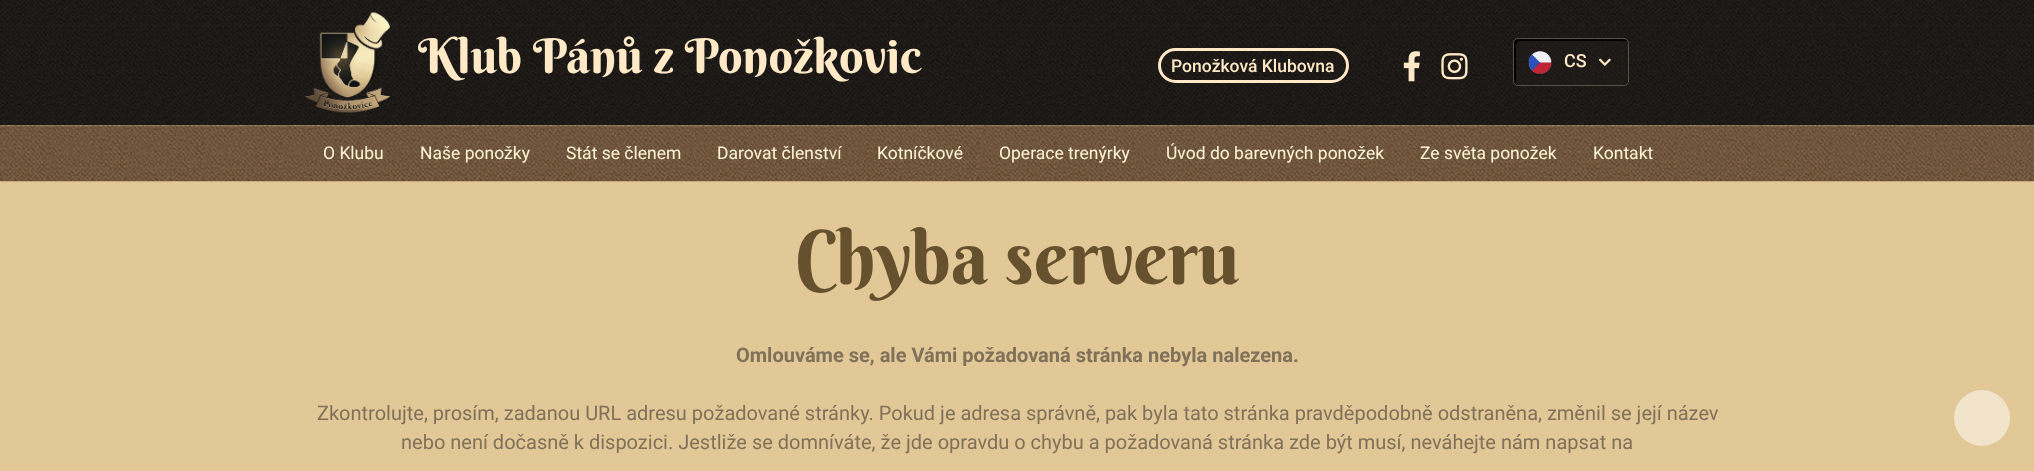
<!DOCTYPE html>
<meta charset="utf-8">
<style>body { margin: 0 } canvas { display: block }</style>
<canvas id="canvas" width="2034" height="471"></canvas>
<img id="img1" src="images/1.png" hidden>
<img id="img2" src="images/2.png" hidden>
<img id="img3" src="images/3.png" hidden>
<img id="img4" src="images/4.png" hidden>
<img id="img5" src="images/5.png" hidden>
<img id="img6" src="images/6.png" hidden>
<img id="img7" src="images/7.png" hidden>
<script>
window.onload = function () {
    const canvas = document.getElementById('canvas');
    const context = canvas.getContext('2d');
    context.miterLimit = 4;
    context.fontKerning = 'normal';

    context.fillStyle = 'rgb(226, 200, 150)';
    context.fillRect(0, 0, 2034, 471);
    context.drawImage(document.getElementById('img1'), 0, 0, 2034, 125);
    context.drawImage(document.getElementById('img2'), 305, 12, 85, 101);
    context.beginPath();
    context.roundRect(1159.5, 49.5, 188, 32, 16);
    context.strokeStyle = 'rgb(255, 233, 198)';
    context.lineWidth = 3;
    context.stroke();
    context.drawImage(document.getElementById('img3'), 1403, 51, 17, 31);
    context.drawImage(document.getElementById('img4'), 1441, 53, 27, 27);
    context.fillStyle = 'rgba(38, 29, 30, 0.3)';
    context.beginPath();
    context.roundRect(1513, 38, 116, 48, 5);
    context.fill();
    context.fillStyle = 'rgb(0, 0, 0)';
    context.beginPath();
    context.moveTo(1520, 41);
    context.lineTo(1626, 41);
    context.lineTo(1628, 41);
    context.bezierCurveTo(1627, 40, 1626, 39, 1624, 39);
    context.lineTo(1518, 39);
    context.bezierCurveTo(1516, 39, 1514, 41, 1514, 43);
    context.lineTo(1514, 81);
    context.bezierCurveTo(1514, 82, 1515, 84, 1516, 84);
    context.lineTo(1516, 52);
    context.bezierCurveTo(1516, 49, 1515, 41, 1520, 41);
    context.closePath();
    context.fill();
    context.beginPath();
    context.roundRect(1513.5, 38.5, 115, 47, 4.5);
    context.strokeStyle = 'rgb(91, 82, 71)';
    context.lineWidth = 1;
    context.stroke();
    context.drawImage(document.getElementById('img5'), 1528, 51, 24, 23);
    context.drawImage(document.getElementById('img6'), 1599, 58, 12, 8);
    context.drawImage(document.getElementById('img7'), 0, 125, 2034, 57);
    context.fillStyle = 'rgb(241, 228, 203)';
    context.beginPath();
    context.arc(1982, 418, 28, 0, 2 * Math.PI);
    context.fill();
    context.font = '48px Berkshire Swash';
    context.fillStyle = 'rgb(255, 233, 198)';
    context.fillText('Klub Pánů z Ponožkovic', 418, 73);
    context.font = '500 17.5px Roboto';
    context.fillText('Ponožková Klubovna', 1171, 72);
    context.font = '500 18px Roboto';
    context.fillText('CS', 1564, 67);
    context.font = '17.5px Roboto';
    context.fillStyle = 'rgb(255, 246, 212)';
    context.fillText('O Klubu', 323, 159);
    context.fillText('Naše ponožky', 420, 159);
    context.fillText('Stát se členem', 566, 159);
    context.fillText('Darovat členství', 717, 159);
    context.fillText('Kotníčkové', 877, 159);
    context.fillText('Operace trenýrky', 999, 159);
    context.fillText('Úvod do barevných ponožek', 1166, 159);
    context.fillText('Ze světa ponožek', 1420, 159);
    context.fillText('Kontakt', 1593, 159);
    context.font = '75px Berkshire Swash';
    context.fillStyle = 'rgb(102, 81, 46)';
    context.fillText('Chyba serveru', 795, 284);
    context.font = 'bold 20px Roboto';
    context.fillStyle = 'rgb(128, 113, 90)';
    context.fillText('Omlouváme se, ale Vámi požadovaná stránka nebyla nalezena.', 736, 362);
    context.font = '20px Roboto';
    context.fillText('Zkontrolujte, prosím, zadanou URL adresu požadované stránky. Pokud je adresa správně, pak byla tato stránka pravděpodobně odstraněna, změnil se její název', 317, 420);
    context.fillText('nebo není dočasně k dispozici. Jestliže se domníváte, že jde opravdu o chybu a požadovaná stránka zde být musí, neváhejte nám napsat na', 401, 449);
};
</script>
